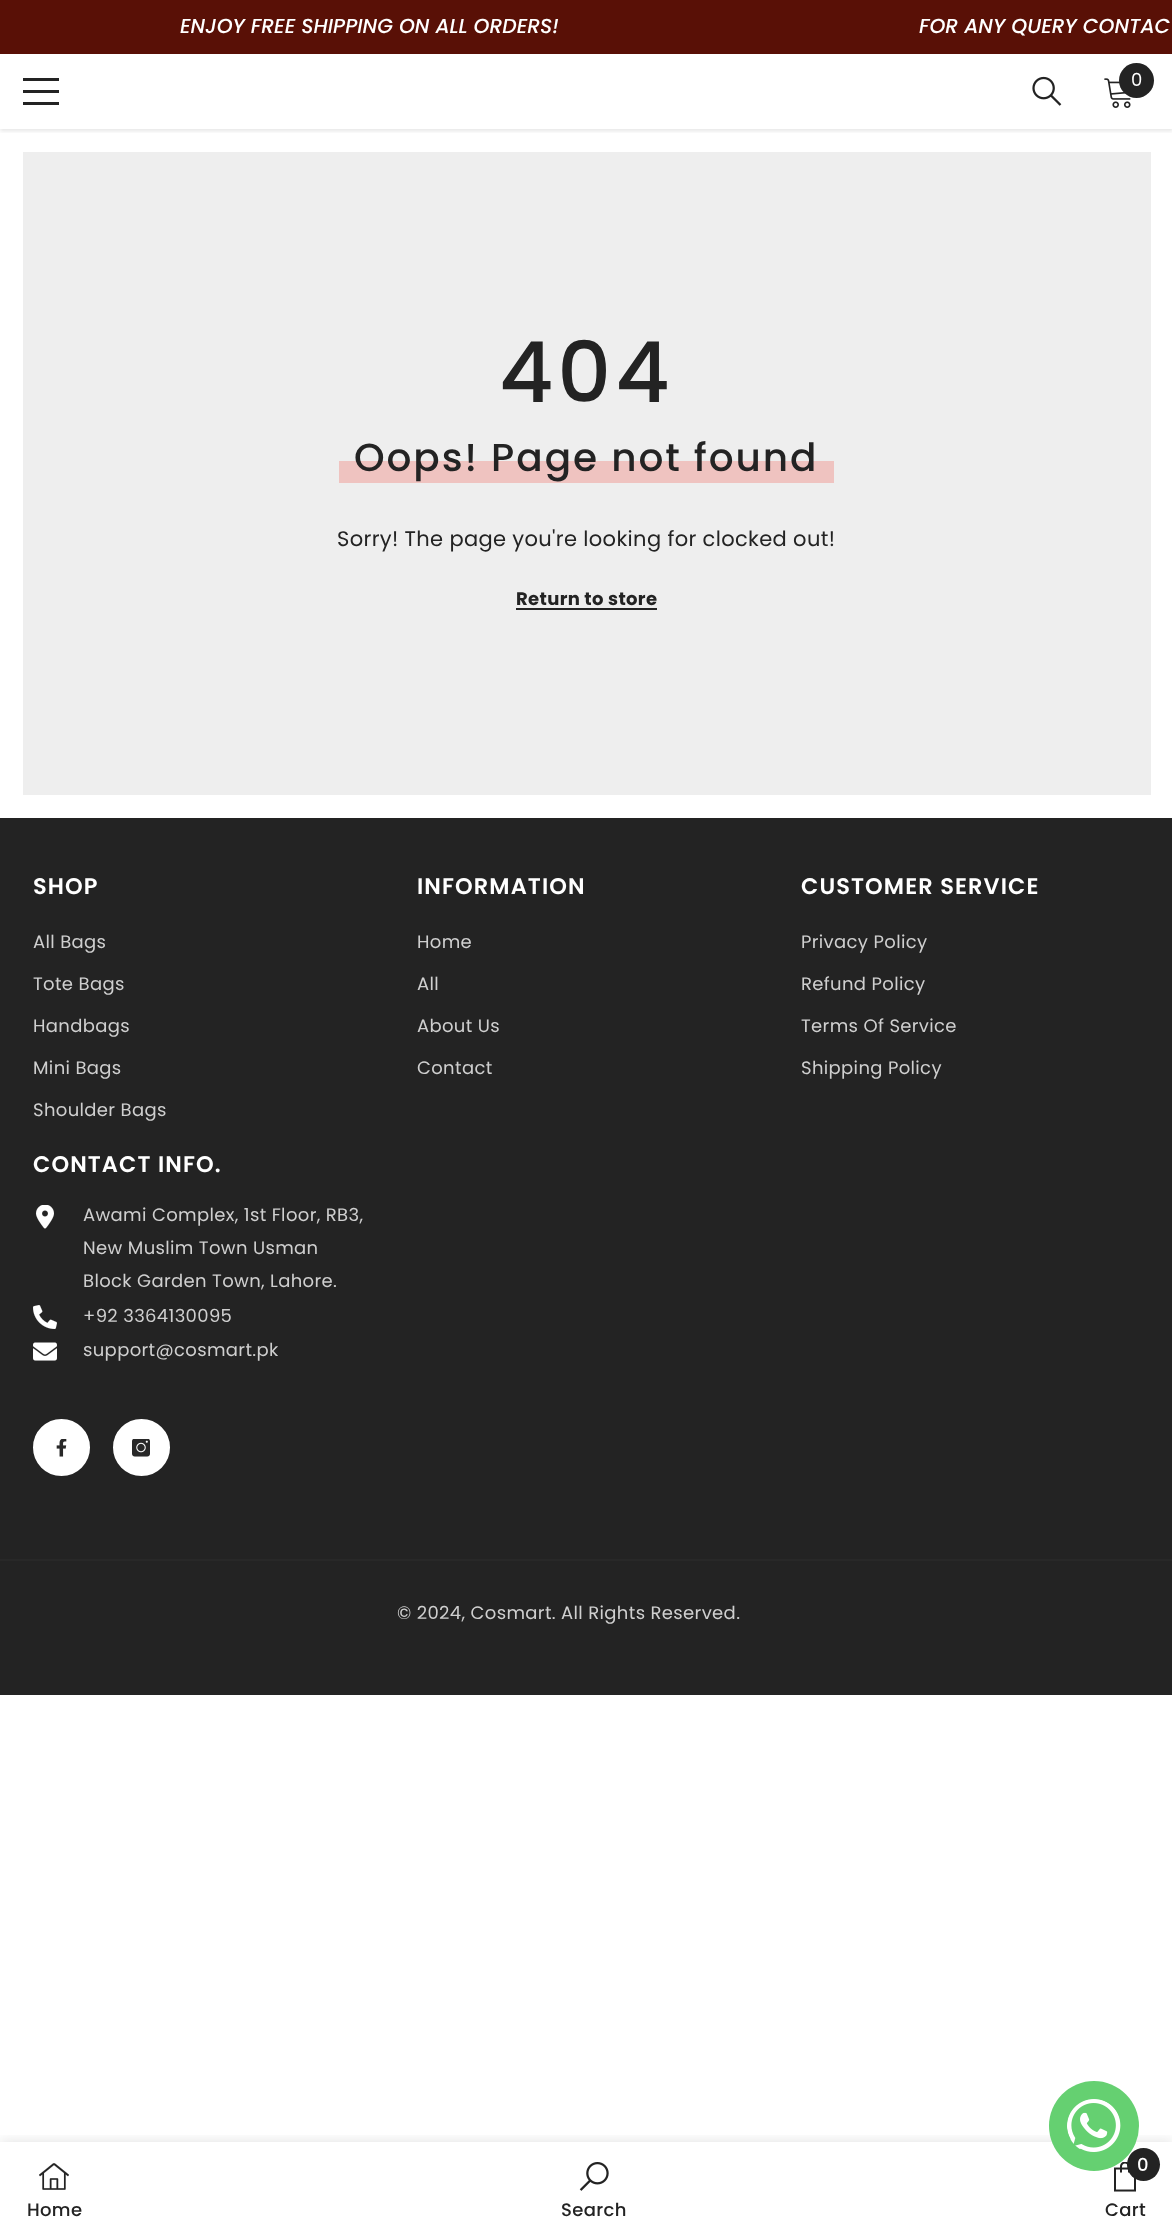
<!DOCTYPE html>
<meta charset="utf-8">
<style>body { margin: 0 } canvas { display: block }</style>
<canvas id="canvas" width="1172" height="2234"></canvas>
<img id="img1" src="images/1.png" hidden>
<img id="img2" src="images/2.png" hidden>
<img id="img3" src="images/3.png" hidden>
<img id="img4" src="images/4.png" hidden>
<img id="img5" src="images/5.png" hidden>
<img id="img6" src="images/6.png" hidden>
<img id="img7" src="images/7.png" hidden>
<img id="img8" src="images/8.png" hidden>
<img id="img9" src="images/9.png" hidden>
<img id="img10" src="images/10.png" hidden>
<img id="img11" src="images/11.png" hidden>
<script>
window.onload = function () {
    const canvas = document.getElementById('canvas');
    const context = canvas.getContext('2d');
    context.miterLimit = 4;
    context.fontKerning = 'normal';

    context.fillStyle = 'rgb(255, 255, 255)';
    context.fillRect(0, 0, 1172, 2234);
    context.fillStyle = 'rgb(89, 16, 6)';
    context.fillRect(0, 0, 1172, 54);
    context.save();
    context.beginPath();
    context.rect(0, 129, 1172, 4);
    context.clip();
    context.fillStyle = 'rgba(0, 0, 0, 0.1)';
    context.filter = 'blur(2px)';
    context.beginPath();
    context.rect(0, 56, 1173, 75);
    context.fill();
    context.filter = 'none';
    context.restore();
    context.fillStyle = 'rgb(35, 35, 35)';
    context.fillRect(23, 90, 36, 3);
    context.fillRect(23, 78, 36, 3);
    context.fillRect(23, 102, 36, 3);
    context.drawImage(document.getElementById('img1'), 1032, 76, 30, 30);
    context.drawImage(document.getElementById('img2'), 1104, 78, 27, 30);
    context.beginPath();
    context.arc(1136.5, 80.5, 17.5, 0, 2 * Math.PI);
    context.fill();
    context.fillStyle = 'rgb(238, 238, 238)';
    context.fillRect(23, 152, 1128, 643);
    context.fillStyle = 'rgb(239, 195, 192)';
    context.fillRect(339, 461, 495, 22);
    context.fillStyle = 'rgb(35, 35, 35)';
    context.fillRect(516, 608, 141, 2);
    context.fillRect(0, 818, 1172, 741);
    context.drawImage(document.getElementById('img3'), 35, 1205, 19, 24);
    context.drawImage(document.getElementById('img4'), 33, 1305, 24, 24);
    context.drawImage(document.getElementById('img5'), 33, 1342, 24, 19);
    context.fillStyle = 'rgb(255, 255, 255)';
    context.beginPath();
    context.arc(61.5, 1447.5, 27.5, 0, 2 * Math.PI);
    context.fill();
    context.strokeStyle = 'rgb(255, 255, 255)';
    context.lineWidth = 2;
    context.stroke();
    context.drawImage(document.getElementById('img6'), 56, 1439, 11, 18);
    context.beginPath();
    context.arc(141.5, 1447.5, 27.5, 0, 2 * Math.PI);
    context.fill();
    context.stroke();
    context.drawImage(document.getElementById('img7'), 132, 1439, 18, 18);
    context.fillStyle = 'rgb(35, 35, 35)';
    context.fillRect(0, 1561, 1172, 134);
    context.fillStyle = 'rgb(40, 40, 40)';
    context.fillRect(0, 1559, 1172, 2);
    context.save();
    context.beginPath();
    context.rect(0, 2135, 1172, 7);
    context.clip();
    context.fillStyle = 'rgba(0, 0, 0, 0.12)';
    context.filter = 'blur(7px)';
    context.beginPath();
    context.rect(0, 2142, 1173, 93);
    context.fill();
    context.filter = 'none';
    context.restore();
    context.drawImage(document.getElementById('img8'), 39, 2163, 30, 27);
    context.drawImage(document.getElementById('img9'), 579, 2162, 30, 29);
    context.drawImage(document.getElementById('img10'), 1114, 2162, 22, 30);
    context.fillStyle = 'rgb(35, 35, 35)';
    context.beginPath();
    context.arc(1143.5, 2164.5, 16.5, 0, 2 * Math.PI);
    context.fill();
    context.font = 'italic 500 20.25px Poppins';
    context.fillStyle = 'rgb(255, 255, 255)';
    context.fillText('ENJOY FREE SHIPPING ON ALL ORDERS!', 180, 33);
    context.fillText('FOR ANY QUERY CONTAC', 919, 33);
    context.font = '18px Poppins';
    context.fillText('0', 1131, 86);
    context.letterSpacing = '4px';
    context.font = '500 84px Poppins';
    context.fillStyle = 'rgb(35, 35, 35)';
    context.fillText('404', 499, 402);
    context.letterSpacing = '1.95px';
    context.font = '500 39px Poppins';
    context.fillText('Oops! Page not found', 354, 471);
    context.letterSpacing = '0.35px';
    context.font = '21px Poppins';
    context.fillText('Sorry! The page you\'re looking for clocked out!', 337, 546);
    context.font = 'bold 18px Poppins';
    context.fillText('Return to store', 516, 605);
    context.letterSpacing = '1.1px';
    context.font = '600 22.5px Poppins';
    context.fillStyle = 'rgb(255, 255, 255)';
    context.fillText('SHOP', 33, 894);
    context.letterSpacing = '0.35px';
    context.font = '18px Poppins';
    context.fillStyle = 'rgb(207, 207, 207)';
    context.fillText('All Bags', 33, 948);
    context.fillText('Tote Bags', 33, 990);
    context.fillText('Handbags', 33, 1032);
    context.fillText('Mini Bags', 33, 1074);
    context.fillText('Shoulder Bags', 33, 1116);
    context.letterSpacing = '1.1px';
    context.font = '600 22.5px Poppins';
    context.fillStyle = 'rgb(255, 255, 255)';
    context.fillText('INFORMATION', 417, 894);
    context.letterSpacing = '0.35px';
    context.font = '18px Poppins';
    context.fillStyle = 'rgb(207, 207, 207)';
    context.fillText('Home', 417, 948);
    context.fillText('All', 417, 990);
    context.fillText('About Us', 417, 1032);
    context.fillText('Contact', 417, 1074);
    context.letterSpacing = '1.1px';
    context.font = '600 22.5px Poppins';
    context.fillStyle = 'rgb(255, 255, 255)';
    context.fillText('CUSTOMER SERVICE', 801, 894);
    context.letterSpacing = '0.35px';
    context.font = '18px Poppins';
    context.fillStyle = 'rgb(207, 207, 207)';
    context.fillText('Privacy Policy', 801, 948);
    context.fillText('Refund Policy', 801, 990);
    context.fillText('Terms Of Service', 801, 1032);
    context.fillText('Shipping Policy', 801, 1074);
    context.letterSpacing = '1.1px';
    context.font = '600 22.5px Poppins';
    context.fillStyle = 'rgb(255, 255, 255)';
    context.fillText('CONTACT INFO.', 33, 1172);
    context.letterSpacing = '0.35px';
    context.font = '18px Poppins';
    context.fillStyle = 'rgb(207, 207, 207)';
    context.fillText('Awami Complex, 1st Floor, RB3,', 83, 1221);
    context.fillText('New Muslim Town Usman', 83, 1254);
    context.fillText('Block Garden Town, Lahore.', 83, 1287);
    context.fillText('+92 3364130095', 83, 1322);
    context.fillText('support@cosmart.pk', 83, 1356);
    context.fillText('© 2024, Cosmart. All Rights Reserved.', 397, 1619);
    context.font = '500 18px Poppins';
    context.fillStyle = 'rgb(35, 35, 35)';
    context.fillText('Home', 27, 2216);
    context.fillText('Search', 561, 2216);
    context.letterSpacing = '0px';
    context.fillStyle = 'rgb(255, 255, 255)';
    context.fillText('0', 1137, 2171);
    context.letterSpacing = '0.35px';
    context.fillStyle = 'rgb(35, 35, 35)';
    context.fillText('Cart', 1105, 2216);
    context.fillStyle = 'rgb(101, 208, 113)';
    context.beginPath();
    context.arc(1094, 2126, 45, 0, 2 * Math.PI);
    context.fill();
    context.drawImage(document.getElementById('img11'), 1067, 2099, 54, 53);
};
</script>
